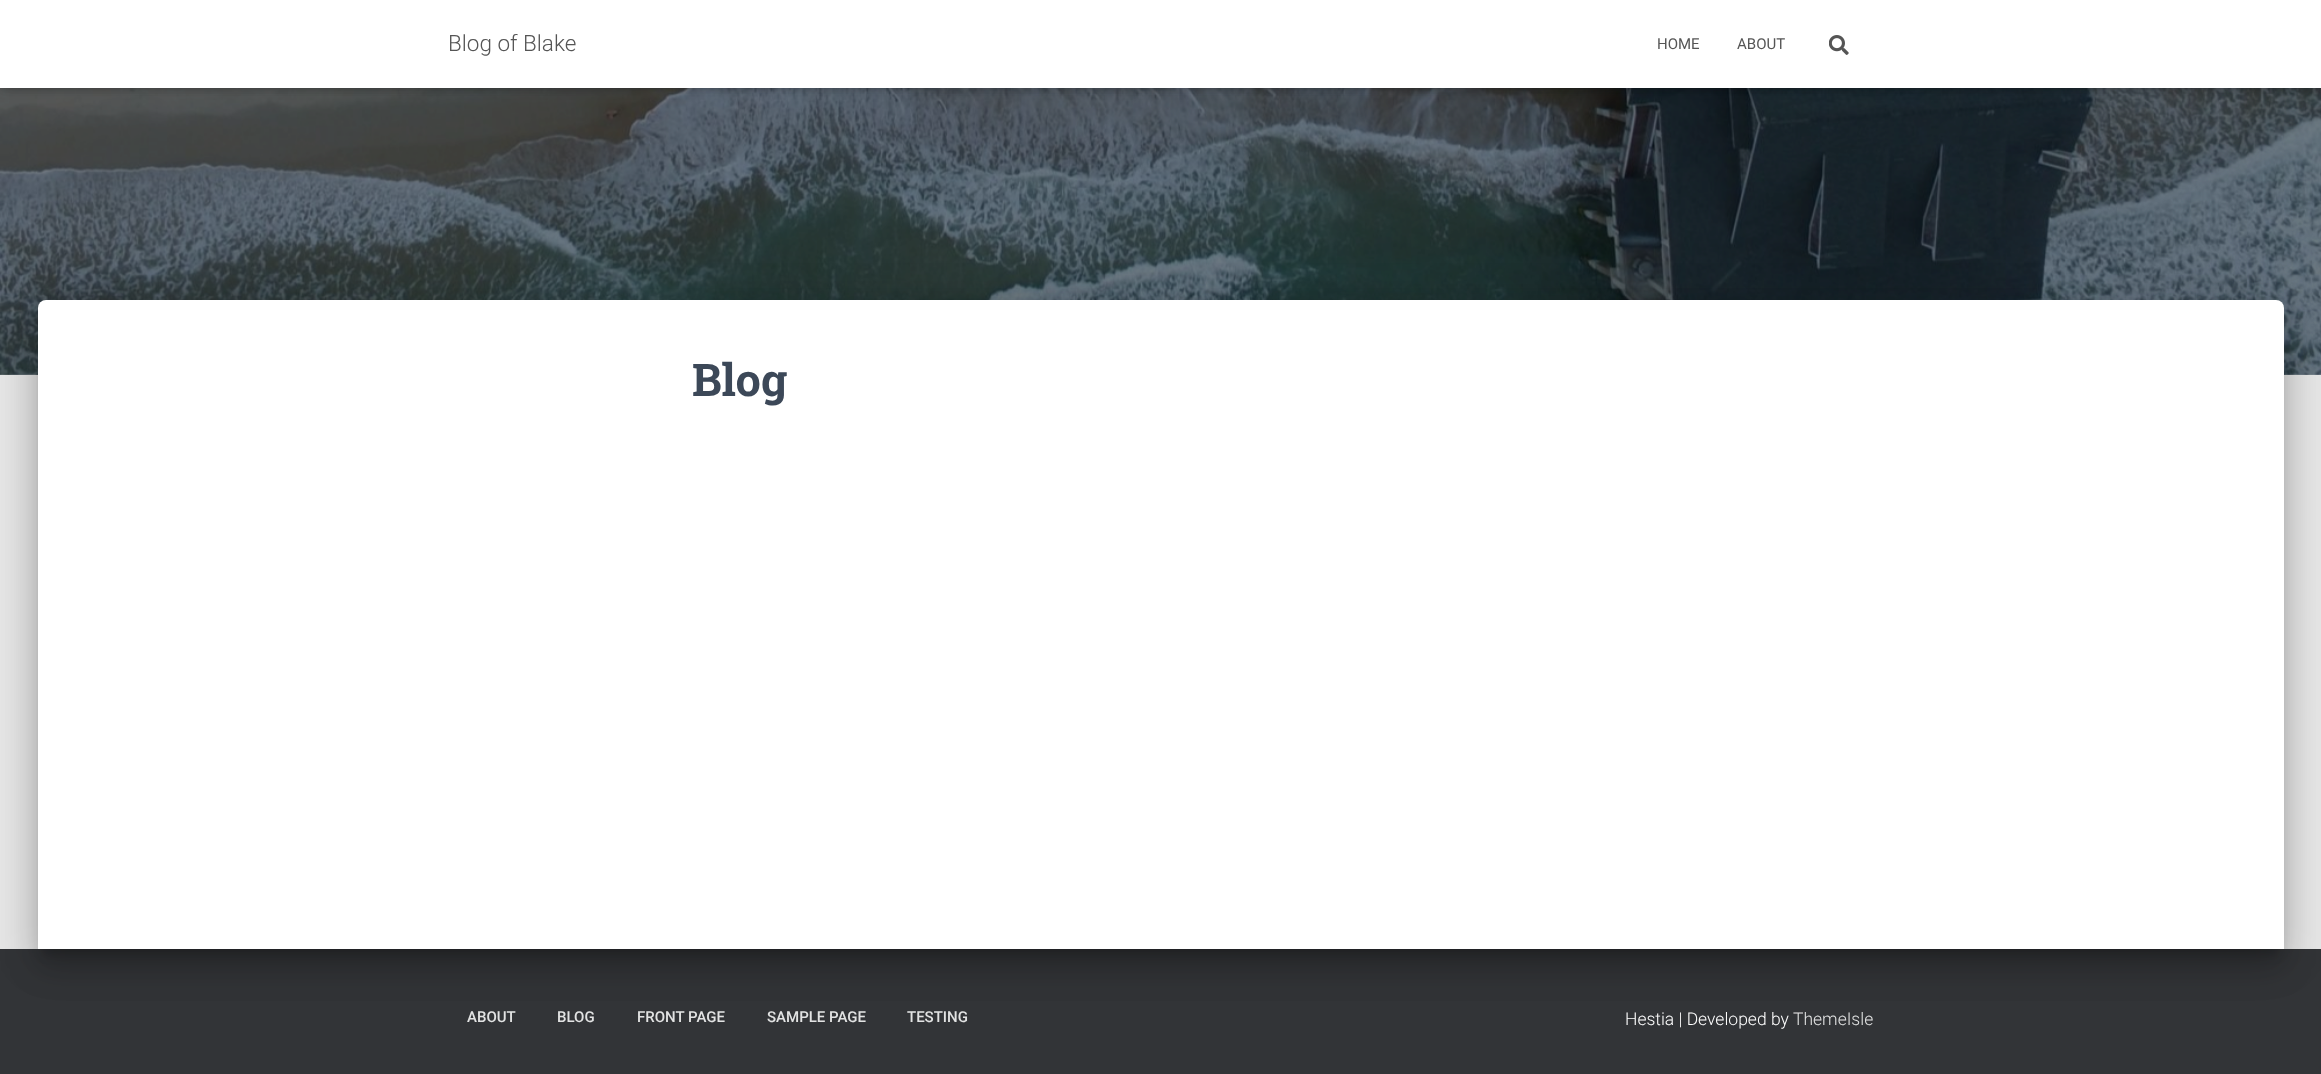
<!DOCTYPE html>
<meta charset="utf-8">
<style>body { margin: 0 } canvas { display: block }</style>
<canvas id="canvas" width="2321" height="1074"></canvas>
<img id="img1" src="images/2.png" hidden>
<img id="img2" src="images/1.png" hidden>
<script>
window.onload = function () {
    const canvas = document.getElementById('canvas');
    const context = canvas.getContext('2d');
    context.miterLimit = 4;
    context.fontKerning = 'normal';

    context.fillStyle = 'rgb(229, 229, 229)';
    context.fillRect(0, 0, 2321, 1074);
    context.drawImage(document.getElementById('img1'), 0, 88, 2321, 287);
    context.fillStyle = 'rgba(0, 0, 0, 0.1)';
    context.filter = 'blur(3px)';
    context.beginPath();
    context.rect(3, 8, 2316, 82);
    context.fill();
    context.filter = 'none';
    context.fillStyle = 'rgba(0, 0, 0, 0.12)';
    context.filter = 'blur(6px)';
    context.beginPath();
    context.rect(0, 1, 2321, 88);
    context.fill();
    context.filter = 'none';
    context.fillStyle = 'rgba(0, 0, 0, 0.42)';
    context.filter = 'blur(6px)';
    context.beginPath();
    context.rect(8, 9, 2306, 72);
    context.fill();
    context.filter = 'none';
    context.fillStyle = 'rgb(255, 255, 255)';
    context.fillRect(0, 0, 2321, 88);
    context.drawImage(document.getElementById('img2'), 1829, 35, 20, 20);
    context.fillStyle = 'rgb(50, 52, 55)';
    context.fillRect(0, 949, 2321, 125);
    context.fillStyle = 'rgba(0, 0, 0, 0.2)';
    context.filter = 'blur(6px)';
    context.beginPath();
    context.roundRect(44, 316, 2234, 637, 1);
    context.fill();
    context.filter = 'none';
    context.fillStyle = 'rgba(0, 0, 0, 0.12)';
    context.filter = 'blur(19px)';
    context.beginPath();
    context.roundRect(31, 301, 2259, 662, 14);
    context.fill();
    context.filter = 'none';
    context.fillStyle = 'rgba(0, 0, 0, 0.14)';
    context.filter = 'blur(15px)';
    context.beginPath();
    context.roundRect(35, 318, 2251, 653, 10);
    context.fill();
    context.filter = 'none';
    context.fillStyle = 'rgb(255, 255, 255)';
    context.beginPath();
    context.roundRect(38, 300, 2246, 649, [8, 8, 0, 0]);
    context.fill();
    context.font = '300 22.5px Roboto';
    context.fillStyle = 'rgb(85, 85, 85)';
    context.fillText('Blog of Blake', 448, 51);
    context.font = '15px Roboto';
    context.fillText('HOME', 1657, 49);
    context.fillText('ABOUT', 1737, 49);
    context.font = 'bold 45px Roboto Slab';
    context.fillStyle = 'rgb(60, 72, 88)';
    context.fillText('Blog', 692, 396);
    context.font = '500 15px Roboto';
    context.fillStyle = 'rgb(226, 227, 227)';
    context.fillText('ABOUT', 467, 1022);
    context.fillText('BLOG', 557, 1022);
    context.fillText('FRONT PAGE', 637, 1022);
    context.fillText('SAMPLE PAGE', 767, 1022);
    context.fillText('TESTING', 907, 1022);
    context.font = '300 17.5px Roboto';
    context.fillStyle = 'rgb(255, 255, 255)';
    context.fillText('Hestia | Developed by', 1625, 1025);
    context.fillStyle = 'rgb(226, 227, 227)';
    context.fillText('ThemeIsle', 1793, 1025);
};
</script>
